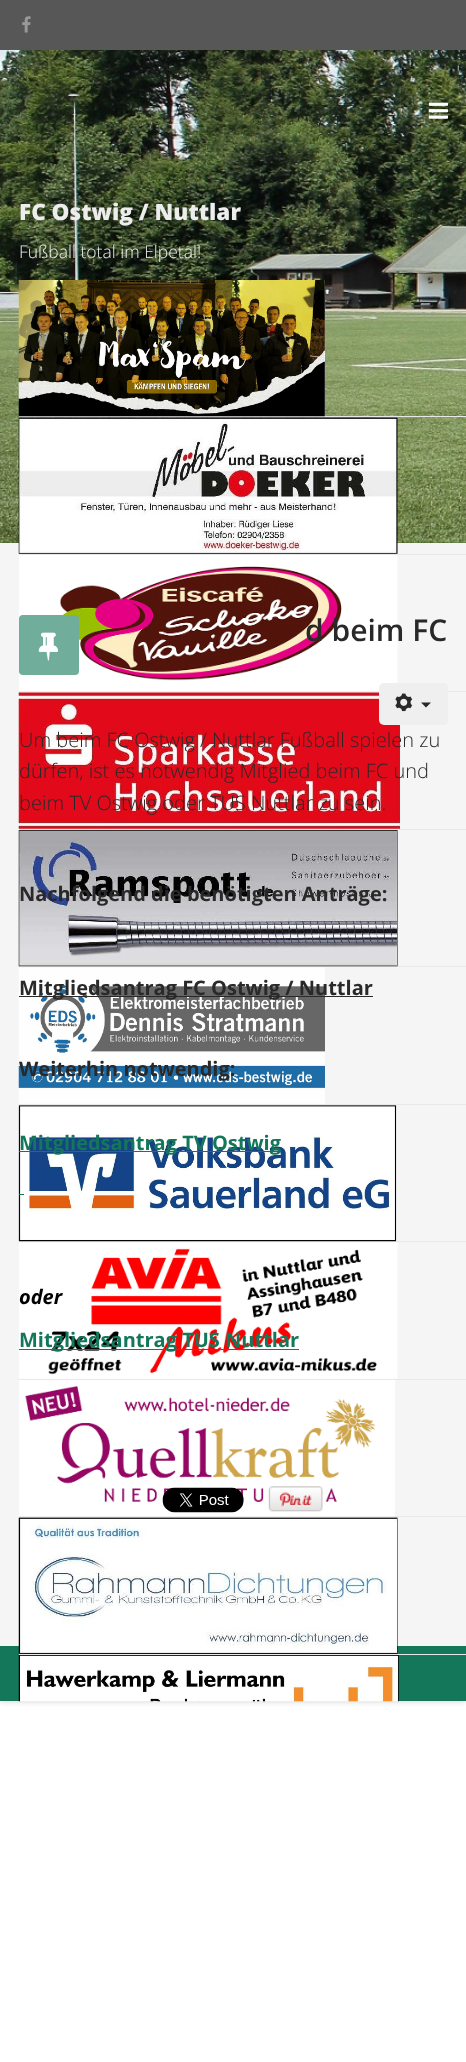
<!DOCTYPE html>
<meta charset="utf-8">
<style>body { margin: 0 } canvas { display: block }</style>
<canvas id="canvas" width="466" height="2062"></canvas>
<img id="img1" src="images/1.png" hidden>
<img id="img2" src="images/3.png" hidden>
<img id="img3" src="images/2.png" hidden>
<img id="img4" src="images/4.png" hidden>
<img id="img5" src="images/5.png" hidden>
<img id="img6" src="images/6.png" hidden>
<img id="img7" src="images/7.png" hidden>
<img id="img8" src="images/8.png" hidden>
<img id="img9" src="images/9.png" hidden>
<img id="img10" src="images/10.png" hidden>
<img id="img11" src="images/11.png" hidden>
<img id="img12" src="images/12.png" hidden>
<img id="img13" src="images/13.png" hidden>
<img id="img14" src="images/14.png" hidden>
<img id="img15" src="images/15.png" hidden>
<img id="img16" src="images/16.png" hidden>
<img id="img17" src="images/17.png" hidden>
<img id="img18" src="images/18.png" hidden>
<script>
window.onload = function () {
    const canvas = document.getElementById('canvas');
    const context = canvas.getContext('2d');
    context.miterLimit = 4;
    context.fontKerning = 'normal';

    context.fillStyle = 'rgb(255, 255, 255)';
    context.fillRect(0, 0, 466, 2062);
    context.fillStyle = 'rgba(0, 0, 0, 0.2)';
    context.filter = 'blur(3px)';
    context.beginPath();
    context.rect(0, 0, 466, 1701);
    context.fill();
    context.filter = 'none';
    context.fillStyle = 'rgb(87, 87, 87)';
    context.fillRect(0, 0, 466, 50);
    context.drawImage(document.getElementById('img1'), 22, 16, 9, 17);
    context.fillStyle = 'rgb(68, 105, 44)';
    context.fillRect(0, 542, 466, 1);
    context.drawImage(document.getElementById('img2'), 0, 50, 466, 493);
    context.drawImage(document.getElementById('img3'), 428, 102, 21, 17);
    context.fillStyle = 'rgb(232, 232, 232)';
    context.fillRect(19, 416, 447, 1);
    context.drawImage(document.getElementById('img4'), 18, 280, 307, 137);
    context.fillStyle = 'rgb(245, 245, 245)';
    context.fillRect(0, 543, 466, 1103);
    context.fillStyle = 'rgb(232, 232, 232)';
    context.fillRect(19, 554, 447, 1);
    context.drawImage(document.getElementById('img5'), 18, 417, 380, 137);
    context.fillRect(19, 691, 447, 1);
    context.drawImage(document.getElementById('img6'), 19, 555, 379, 137);
    context.fillRect(19, 829, 447, 1);
    context.drawImage(document.getElementById('img7'), 18, 692, 382, 137);
    context.fillRect(19, 966, 447, 1);
    context.drawImage(document.getElementById('img8'), 18, 830, 380, 137);
    context.fillRect(19, 1104, 447, 1);
    context.drawImage(document.getElementById('img9'), 18, 967, 307, 137);
    context.fillRect(19, 1241, 447, 1);
    context.drawImage(document.getElementById('img10'), 18, 1105, 379, 137);
    context.fillRect(19, 1379, 447, 1);
    context.drawImage(document.getElementById('img11'), 19, 1242, 379, 137);
    context.fillRect(19, 1516, 447, 1);
    context.drawImage(document.getElementById('img12'), 19, 1380, 376, 137);
    context.fillStyle = 'rgb(20, 119, 90)';
    context.fillRect(0, 1646, 466, 55);
    context.fillStyle = 'rgb(232, 232, 232)';
    context.fillRect(19, 1654, 447, 1);
    context.drawImage(document.getElementById('img13'), 18, 1517, 380, 137);
    context.drawImage(document.getElementById('img14'), 18, 1655, 381, 47);
    context.fillStyle = 'rgb(113, 173, 155)';
    context.beginPath();
    context.roundRect(19, 615, 60, 60, 4);
    context.fill();
    context.drawImage(document.getElementById('img15'), 38, 632, 20, 29);
    context.fillStyle = 'rgb(239, 239, 239)';
    context.beginPath();
    context.roundRect(379, 683, 69, 42, 5);
    context.fill();
    context.drawImage(document.getElementById('img16'), 395, 693, 18, 19);
    context.fillStyle = 'rgb(41, 41, 41)';
    context.beginPath();
    context.moveTo(421, 702.5);
    context.lineTo(431, 702.5);
    context.lineTo(426, 707.5);
    context.closePath();
    context.fill();
    context.fillRect(19, 996, 354, 1);
    context.fillStyle = 'rgb(20, 119, 90)';
    context.fillRect(19, 1151, 262, 1);
    context.fillRect(19, 1194, 5, 1);
    context.fillRect(19, 1349, 280, 1);
    context.drawImage(document.getElementById('img17'), 162, 1487, 82, 26);
    context.drawImage(document.getElementById('img18'), 268, 1486, 55, 26);
    context.font = '800 22.5px Open Sans';
    context.fillStyle = 'rgb(237, 237, 237)';
    context.fillText('FC Ostwig / Nuttlar', 19, 220);
    context.font = '300 17.5px Open Sans';
    context.fillText('Fußball total im Elpetal!', 19, 258);
    context.font = '600 30px Open Sans';
    context.fillStyle = 'rgb(41, 41, 41)';
    context.fillText('d beim FC', 305, 641);
    context.font = '300 20px Open Sans';
    context.fillText('Um beim FC Ostwig / Nuttlar Fußball spielen zu', 19, 747);
    context.fillText('dürfen, ist es notwendig Mitglied beim FC und', 19, 778);
    context.fillText('beim TV Ostwig oder TUS Nuttlar zu sein.', 19, 810);
    context.font = 'bold 20px Open Sans';
    context.fillText('Nachfolgend die benötigten Anträge:', 19, 901);
    context.fillText('Mitgliedsantrag FC Ostwig / Nuttlar', 19, 995);
    context.fillText('Weiterhin notwendig:', 19, 1076);
    context.fillStyle = 'rgb(20, 119, 90)';
    context.fillText('Mitgliedsantrag TV Ostwig', 19, 1150);
    context.font = 'italic bold 20px Open Sans';
    context.fillStyle = 'rgb(0, 0, 0)';
    context.fillText('oder', 19, 1304);
    context.font = 'bold 20px Open Sans';
    context.fillStyle = 'rgb(20, 119, 90)';
    context.fillText('Mitgliedsantrag TUS Nuttlar', 19, 1347);
};
</script>
